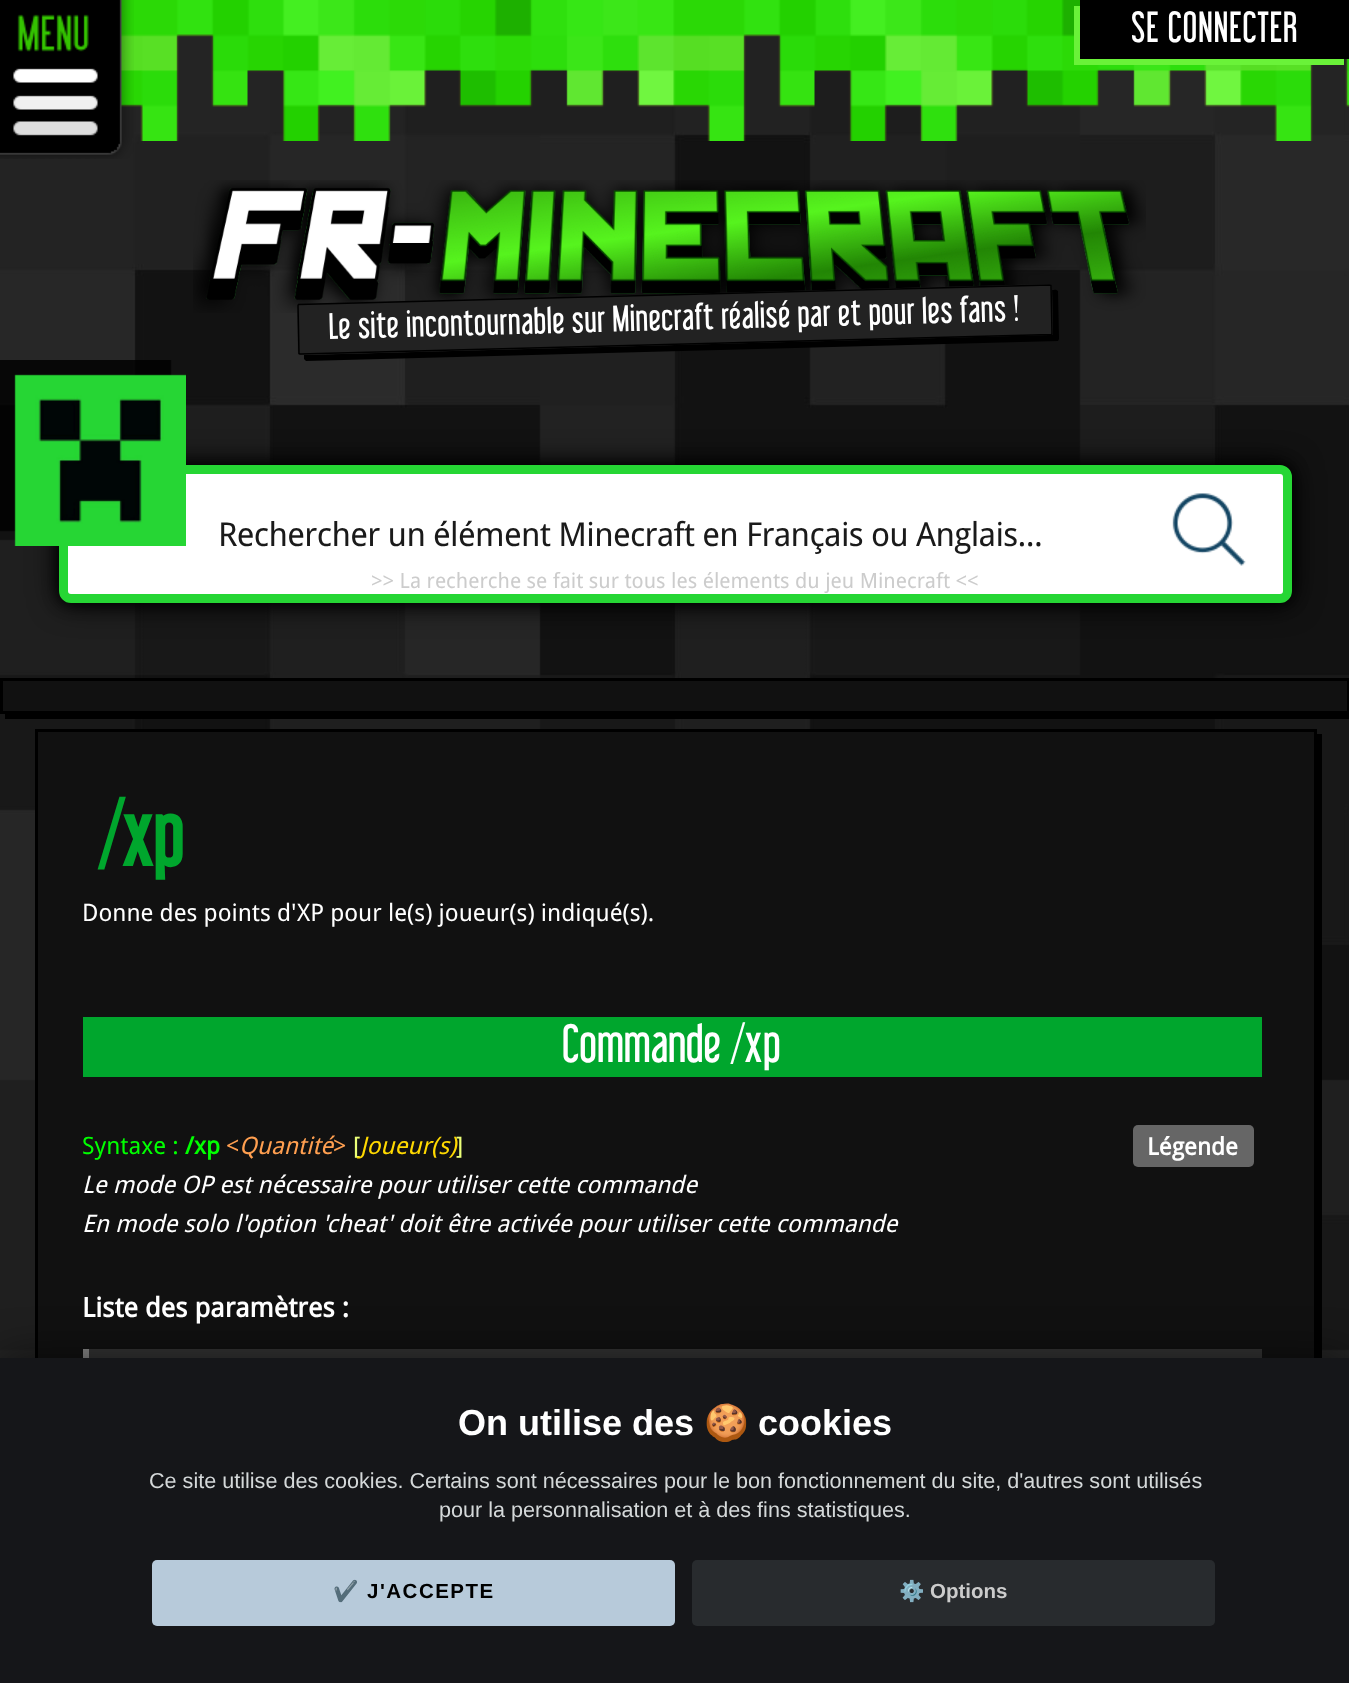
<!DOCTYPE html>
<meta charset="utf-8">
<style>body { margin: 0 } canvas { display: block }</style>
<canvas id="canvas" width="1349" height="1683"></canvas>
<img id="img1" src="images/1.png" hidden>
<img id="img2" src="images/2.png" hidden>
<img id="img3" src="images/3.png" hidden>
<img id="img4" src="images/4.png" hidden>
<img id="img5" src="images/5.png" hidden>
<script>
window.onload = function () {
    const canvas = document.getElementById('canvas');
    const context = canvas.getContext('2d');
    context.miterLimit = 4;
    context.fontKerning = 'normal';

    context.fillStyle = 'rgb(255, 255, 255)';
    context.fillRect(0, 0, 1349, 1683);
    context.drawImage(document.getElementById('img1'), 0, 0, 1349, 1358);
    context.fillStyle = 'rgb(106, 242, 57)';
    context.beginPath();
    context.moveTo(1074, 6);
    context.lineTo(1074, 65);
    context.lineTo(1344, 65);
    context.lineTo(1344, 58);
    context.lineTo(1080, 58);
    context.lineTo(1080, 6);
    context.closePath();
    context.fill();
    context.fillStyle = 'rgb(0, 0, 0)';
    context.fillRect(1080, 0, 269, 59);
    context.drawImage(document.getElementById('img2'), 0, 0, 134, 159);
    context.drawImage(document.getElementById('img3'), 193, 180, 953, 133);
    context.beginPath();
    context.moveTo(304, 355);
    context.lineTo(304, 359);
    context.lineTo(306, 361);
    context.lineTo(1058, 341);
    context.lineTo(1059, 339);
    context.lineTo(1058, 291);
    context.bezierCurveTo(1056, 289, 1054, 290, 1052, 290);
    context.lineTo(1053, 334);
    context.bezierCurveTo(1053, 334, 1052, 335, 1051, 335);
    context.closePath();
    context.fill();
    context.fillStyle = 'rgb(34, 34, 34)';
    context.beginPath();
    context.moveTo(299, 304);
    context.lineTo(1050, 284);
    context.bezierCurveTo(1051, 284, 1052, 285, 1052, 286);
    context.lineTo(1053, 334);
    context.bezierCurveTo(1053, 334, 1052, 335, 1051, 335);
    context.lineTo(300, 355);
    context.bezierCurveTo(299, 355, 298, 354, 298, 353);
    context.lineTo(297, 305);
    context.bezierCurveTo(297, 305, 298, 304, 299, 304);
    context.closePath();
    context.fill();
    context.beginPath();
    context.moveTo(298.5, 304.5);
    context.lineTo(1050, 285);
    context.lineTo(1051, 285.5);
    context.lineTo(1052, 333.5);
    context.lineTo(1051.5, 334.5);
    context.lineTo(300, 354);
    context.lineTo(299, 353.5);
    context.lineTo(298, 305.5);
    context.closePath();
    context.strokeStyle = 'rgb(0, 0, 0)';
    context.lineWidth = 1.5;
    context.stroke();
    context.fillStyle = 'rgb(0, 0, 0)';
    context.filter = 'blur(15px)';
    context.beginPath();
    context.roundRect(59, 465, 1233, 138, 12);
    context.fill();
    context.filter = 'none';
    context.filter = 'blur(7.5px)';
    context.beginPath();
    context.roundRect(59, 465, 1233, 138, 12);
    context.fill();
    context.filter = 'none';
    context.fillStyle = 'rgb(255, 255, 255)';
    context.beginPath();
    context.roundRect(63.5, 469.5, 1224, 129, 7.5);
    context.fill();
    context.strokeStyle = 'rgb(38, 214, 52)';
    context.lineWidth = 9;
    context.stroke();
    context.fillRect(68, 474, 3, 3);
    context.drawImage(document.getElementById('img4'), 0, 360, 186, 186);
    context.drawImage(document.getElementById('img5'), 1172, 493, 74, 73);
    context.fillStyle = 'rgb(0, 0, 0)';
    context.beginPath();
    context.moveTo(5, 714);
    context.lineTo(5, 719);
    context.lineTo(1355, 719);
    context.lineTo(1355, 683);
    context.lineTo(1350, 683);
    context.lineTo(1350, 714);
    context.closePath();
    context.fill();
    context.fillStyle = 'rgb(17, 17, 17)';
    context.beginPath();
    context.rect(1.5, 679.5, 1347, 33);
    context.fill();
    context.strokeStyle = 'rgb(0, 0, 0)';
    context.lineWidth = 3;
    context.stroke();
    context.fillStyle = 'rgb(0, 0, 0)';
    context.beginPath();
    context.moveTo(39, 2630);
    context.lineTo(39, 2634);
    context.lineTo(1322, 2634);
    context.lineTo(1322, 734);
    context.lineTo(1317, 734);
    context.lineTo(1317, 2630);
    context.closePath();
    context.fill();
    context.fillStyle = 'rgb(17, 17, 17)';
    context.fillRect(38, 732, 1276, 626);
    context.strokeRect(36.5, 730.5, 1279, 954);
    context.fillStyle = 'rgb(0, 166, 45)';
    context.fillRect(83, 1017, 1179, 60);
    context.fillStyle = 'rgb(102, 102, 102)';
    context.beginPath();
    context.roundRect(1133, 1125, 121, 42, 5);
    context.fill();
    context.fillStyle = 'rgb(51, 51, 51)';
    context.fillRect(89, 1349, 1173, 9);
    context.fillStyle = 'rgb(136, 136, 136)';
    context.fillRect(83, 1349, 6, 9);
    context.fillStyle = 'rgba(0, 0, 0, 0.56)';
    context.filter = 'blur(22.5px)';
    context.beginPath();
    context.rect(0, 1358, 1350, 325);
    context.fill();
    context.filter = 'none';
    context.fillStyle = 'rgb(21, 22, 25)';
    context.fillRect(0, 1358, 1349, 325);
    context.fillStyle = 'rgb(183, 202, 218)';
    context.beginPath();
    context.roundRect(152, 1560, 523, 66, 5);
    context.fill();
    context.fillStyle = 'rgb(40, 43, 46)';
    context.beginPath();
    context.roundRect(692, 1560, 523, 66, 5);
    context.fill();
    context.letterSpacing = '1px';
    context.font = '39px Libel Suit';
    context.fillStyle = 'rgb(255, 255, 255)';
    context.fillText('SE CONNECTER', 1131, 42);
    context.letterSpacing = '0.65px';
    context.font = '33px Libel Suit';
    context.save();
    context.translate(329, 339);
    context.rotate(-1.5 * Math.PI / 180);
    context.fillText('Le site incontournable sur Minecraft réalisé par et pour les fans !', 0, 0);
    context.restore();
    context.letterSpacing = '-0.65px';
    context.font = '33px Droid Sans';
    context.fillStyle = 'rgb(26, 26, 26)';
    context.fillText('Rechercher un élément Minecraft en Français ou Anglais...', 218, 546);
    context.letterSpacing = '0px';
    context.font = '21px Droid Sans';
    context.fillStyle = 'rgb(204, 204, 204)';
    context.fillText('>> La recherche se fait sur tous les élements du jeu Minecraft <<', 371, 588);
    context.font = 'bold 81px Libel Suit';
    context.fillStyle = 'rgb(0, 166, 45)';
    context.fillText('/xp', 97, 866);
    context.font = '24px Droid Sans';
    context.fillStyle = 'rgb(255, 255, 255)';
    context.fillText('Donne des points d\'XP pour le(s) joueur(s) indiqué(s).', 82, 921);
    context.font = '48px Libel Suit';
    context.fillText('Commande /xp', 562, 1062);
    context.font = '24px Droid Sans';
    context.fillStyle = 'rgb(0, 255, 0)';
    context.fillText('Syntaxe :', 82, 1154);
    context.font = 'bold 24px Droid Sans';
    context.fillText('/xp', 185, 1154);
    context.font = 'italic 24px Droid Sans';
    context.fillStyle = 'rgb(255, 159, 80)';
    context.fillText('Quantité', 239, 1154);
    context.font = '24px Droid Sans';
    context.fillStyle = 'rgb(235, 255, 120)';
    context.fillText('[', 353, 1154);
    context.fillStyle = 'rgb(255, 159, 80)';
    context.fillText('<', 226, 1154);
    context.fillText('>', 333, 1154);
    context.font = 'italic 24px Droid Sans';
    context.fillStyle = 'rgb(255, 217, 0)';
    context.fillText('Joueur(s)', 360, 1154);
    context.font = '24px Droid Sans';
    context.fillStyle = 'rgb(235, 255, 120)';
    context.fillText(']', 456, 1154);
    context.font = 'bold 24px Droid Sans';
    context.fillStyle = 'rgb(255, 255, 255)';
    context.fillText('Légende', 1147, 1155);
    context.font = 'italic 24px Droid Sans';
    context.fillText('Le mode OP est nécessaire pour utiliser cette commande', 82, 1193);
    context.fillText('En mode solo l\'option \'cheat\' doit être activée pour utiliser cette commande', 82, 1232);
    context.font = 'bold 27px Droid Sans';
    context.fillText('Liste des paramètres :', 82, 1317);
    context.font = 'bold 36px Liberation Sans';
    context.fillText('On utilise des', 458, 1435);
    context.font = 'bold 36px Noto Color Emoji';
    context.fillText('🍪', 704, 1435);
    context.font = 'bold 36px Liberation Sans';
    context.fillText('cookies', 758, 1435);
    context.font = '21.6px Liberation Sans';
    context.fillStyle = 'rgb(212, 216, 217)';
    context.fillText('Ce site utilise des cookies. Certains sont nécessaires pour le bon fonctionnement du site, d\'autres sont utilisés', 149, 1488);
    context.fillText('pour la personnalisation et à des fins statistiques.', 439, 1517);
    context.letterSpacing = '1.5px';
    context.font = 'bold 20.5px Noto Color Emoji';
    context.fillStyle = 'rgb(0, 0, 0)';
    context.fillText('✔️', 333, 1598);
    context.font = 'bold 20.5px Liberation Sans';
    context.fillText('J\'ACCEPTE', 367, 1598);
    context.letterSpacing = '0px';
    context.font = 'bold 20.5px Noto Color Emoji';
    context.fillStyle = 'rgb(204, 204, 204)';
    context.fillText('⚙️', 899, 1598);
    context.font = 'bold 20.5px Liberation Sans';
    context.fillText('Options', 930, 1598);
};
</script>
